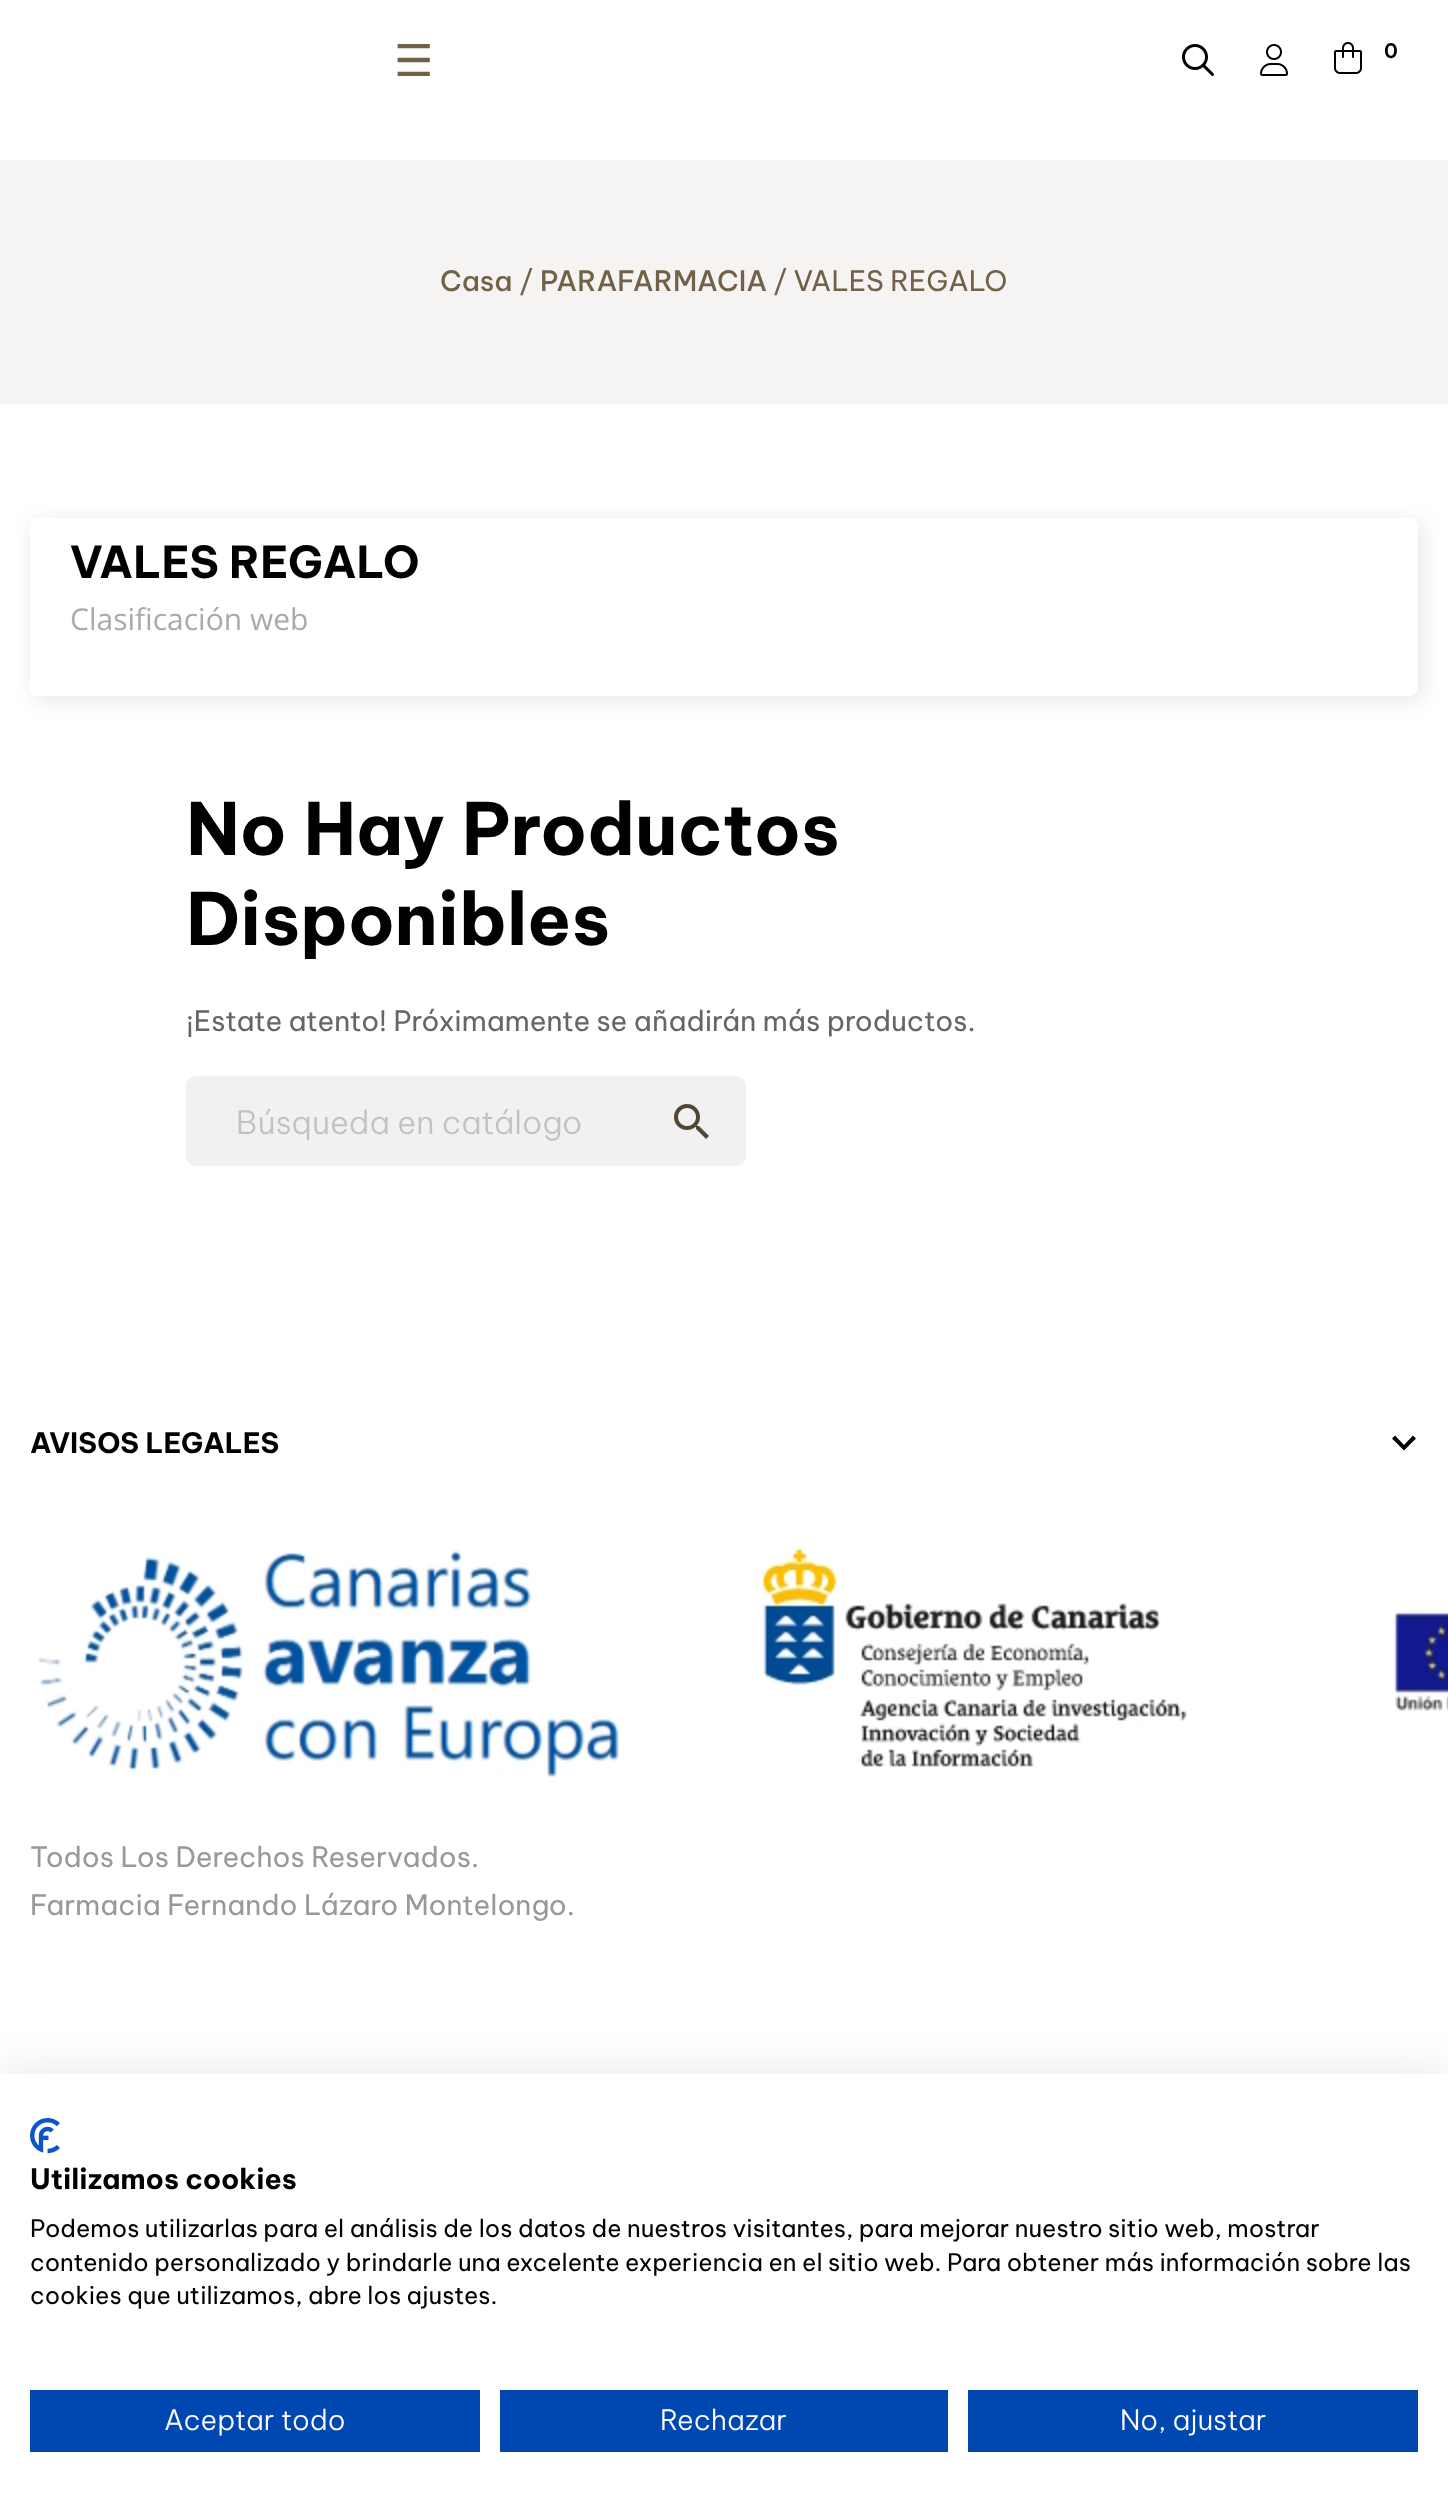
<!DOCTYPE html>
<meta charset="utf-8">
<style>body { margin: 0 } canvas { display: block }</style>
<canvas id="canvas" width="1448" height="2506"></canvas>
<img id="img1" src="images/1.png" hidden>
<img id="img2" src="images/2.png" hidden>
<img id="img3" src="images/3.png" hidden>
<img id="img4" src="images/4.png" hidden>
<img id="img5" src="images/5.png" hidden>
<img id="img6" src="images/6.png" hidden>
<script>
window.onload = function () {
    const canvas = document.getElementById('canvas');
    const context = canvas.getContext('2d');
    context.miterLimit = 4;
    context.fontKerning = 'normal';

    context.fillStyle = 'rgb(255, 255, 255)';
    context.fillRect(0, 0, 1448, 2506);
    context.drawImage(document.getElementById('img1'), 1182, 44, 32, 32);
    context.drawImage(document.getElementById('img2'), 1260, 44, 28, 32);
    context.drawImage(document.getElementById('img3'), 1334, 42, 28, 32);
    context.fillStyle = 'rgb(246, 244, 242)';
    context.fillRect(0, 160, 1448, 244);
    context.save();
    context.beginPath();
    context.moveTo(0, 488);
    context.lineTo(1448, 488);
    context.lineTo(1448, 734);
    context.lineTo(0, 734);
    context.closePath();
    context.moveTo(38, 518);
    context.lineTo(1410, 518);
    context.bezierCurveTo(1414.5, 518, 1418, 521.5, 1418, 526);
    context.lineTo(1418, 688);
    context.bezierCurveTo(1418, 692.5, 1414.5, 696, 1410, 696);
    context.lineTo(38, 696);
    context.bezierCurveTo(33.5, 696, 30, 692.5, 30, 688);
    context.lineTo(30, 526);
    context.bezierCurveTo(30, 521.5, 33.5, 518, 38, 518);
    context.closePath();
    context.clip('evenodd');
    context.fillStyle = 'rgba(0, 0, 0, 0.1)';
    context.filter = 'blur(11px)';
    context.beginPath();
    context.roundRect(34, 522, 1388, 178, 8);
    context.fill();
    context.filter = 'none';
    context.restore();
    context.fillStyle = 'rgb(241, 241, 241)';
    context.beginPath();
    context.roundRect(186, 1076, 560, 90, 10);
    context.fill();
    context.drawImage(document.getElementById('img4'), 674, 1104, 35, 35);
    context.fillStyle = 'rgb(0, 0, 0)';
    context.beginPath();
    context.moveTo(1395, 1435.5);
    context.lineTo(1404, 1445);
    context.lineTo(1413, 1435.5);
    context.lineTo(1416, 1438.5);
    context.lineTo(1404, 1450.5);
    context.lineTo(1392, 1438.5);
    context.closePath();
    context.fill();
    context.drawImage(document.getElementById('img5'), 38, 1547, 1410, 232);
    context.fillStyle = 'rgba(0, 0, 0, 0.1)';
    context.filter = 'blur(24px)';
    context.beginPath();
    context.rect(0, 2074, 1448, 432);
    context.fill();
    context.filter = 'none';
    context.fillStyle = 'rgb(255, 255, 255)';
    context.fillRect(0, 2074, 1448, 432);
    context.drawImage(document.getElementById('img6'), 30, 2118, 30, 36);
    context.fillStyle = 'rgb(0, 71, 178)';
    context.fillRect(30, 2390, 450, 62);
    context.fillRect(500, 2390, 448, 62);
    context.fillRect(968, 2390, 450, 62);
    context.font = '44px DejaVu Sans';
    context.fillStyle = 'rgb(113, 97, 71)';
    context.fillText('☰', 394, 76);
    context.font = '600 20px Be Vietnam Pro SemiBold';
    context.fillStyle = 'rgb(0, 0, 0)';
    context.fillText('0', 1384, 58);
    context.font = '500 28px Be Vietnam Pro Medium';
    context.fillStyle = 'rgb(113, 97, 71)';
    context.fillText('Casa', 440, 291);
    context.font = '28px Be Vietnam Pro';
    context.fillText('/', 519, 291);
    context.font = '500 28px Be Vietnam Pro Medium';
    context.fillText('PARAFARMACIA', 540, 291);
    context.font = '28px Be Vietnam Pro';
    context.fillText('/ VALES REGALO', 773, 291);
    context.font = 'bold 44px Be Vietnam Pro';
    context.fillStyle = 'rgb(0, 0, 0)';
    context.fillText('VALES REGALO', 70, 578);
    context.font = '30px Open Sans';
    context.fillStyle = 'rgb(172, 170, 166)';
    context.fillText('Clasificación web', 70, 630);
    context.font = 'bold 72px Be Vietnam Pro';
    context.fillStyle = 'rgb(0, 0, 0)';
    context.fillText('No Hay Productos', 186, 855);
    context.fillText('Disponibles', 186, 945);
    context.font = '28px Be Vietnam Pro';
    context.fillStyle = 'rgb(102, 102, 102)';
    context.fillText('¡Estate atento! Próximamente se añadirán más productos.', 186, 1031);
    context.font = '300 32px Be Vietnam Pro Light';
    context.fillStyle = 'rgb(194, 194, 194)';
    context.fillText('Búsqueda en catálogo', 236, 1134);
    context.font = 'bold 28px Be Vietnam Pro';
    context.fillStyle = 'rgb(0, 0, 0)';
    context.fillText('AVISOS LEGALES', 30, 1453);
    context.font = '28px Be Vietnam Pro';
    context.fillStyle = 'rgb(153, 153, 153)';
    context.fillText('Todos Los Derechos Reservados.', 30, 1867);
    context.fillText('Farmacia Fernando Lázaro Montelongo.', 30, 1915);
    context.font = 'bold 28px Be Vietnam Pro';
    context.fillStyle = 'rgb(0, 0, 0)';
    context.fillText('Utilizamos cookies', 30, 2189);
    context.font = '24px Be Vietnam Pro';
    context.fillText('Podemos utilizarlas para el análisis de los datos de nuestros visitantes, para mejorar nuestro sitio web, mostrar', 30, 2237);
    context.fillText('contenido personalizado y brindarle una excelente experiencia en el sitio web. Para obtener más información sobre las', 30, 2271);
    context.fillText('cookies que utilizamos, abre los ajustes.', 30, 2304);
    context.font = '300 28px Be Vietnam Pro Light';
    context.fillStyle = 'rgb(255, 255, 255)';
    context.fillText('Aceptar todo', 164, 2430);
    context.fillText('Rechazar', 660, 2430);
    context.fillText('No, ajustar', 1120, 2430);
};
</script>
